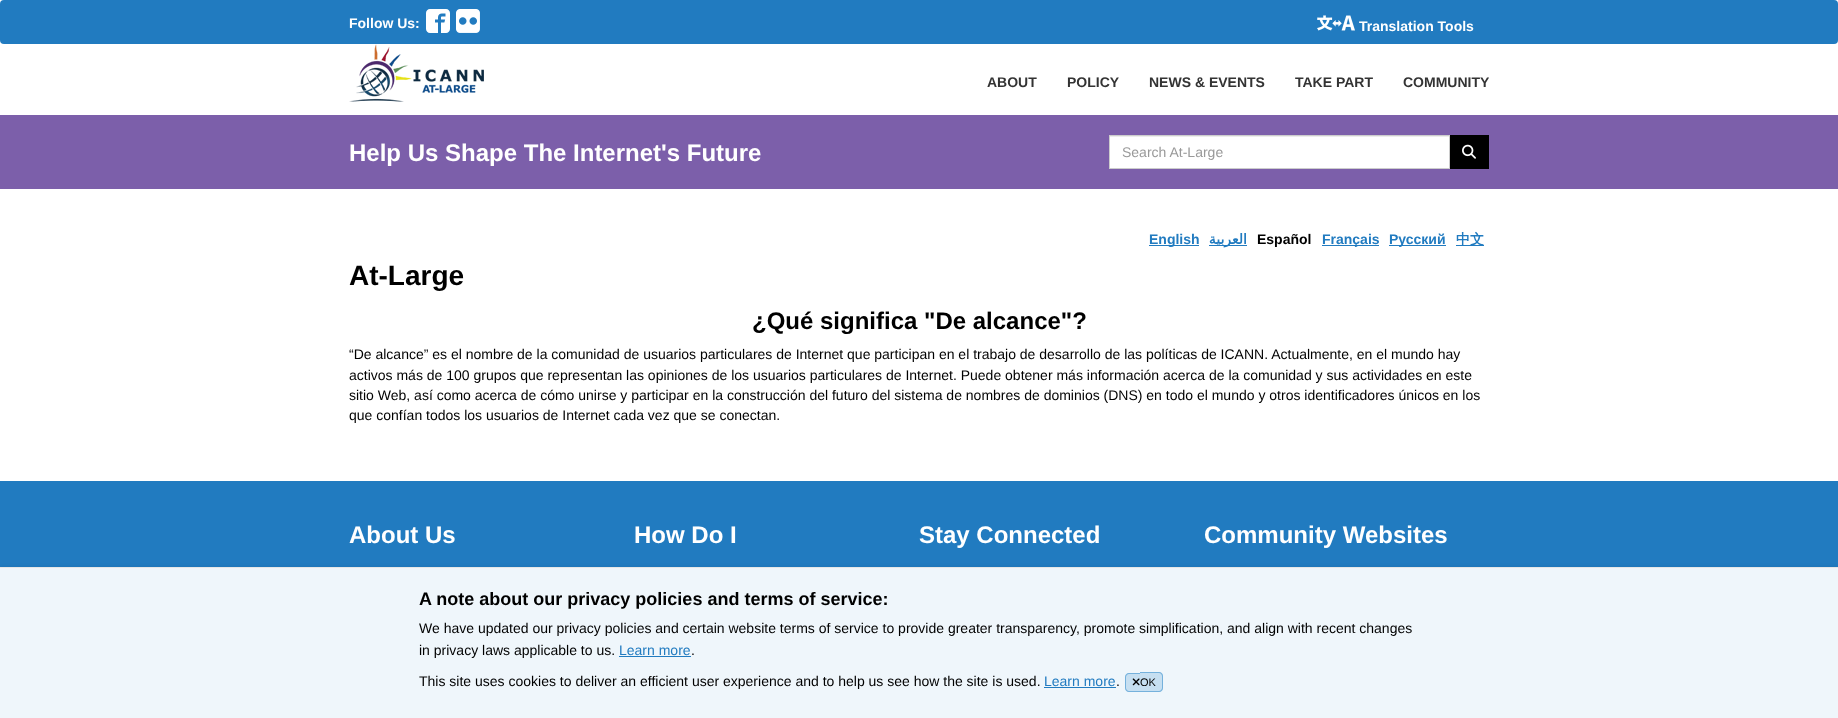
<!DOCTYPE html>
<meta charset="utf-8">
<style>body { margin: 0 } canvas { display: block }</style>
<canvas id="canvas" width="1838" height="718"></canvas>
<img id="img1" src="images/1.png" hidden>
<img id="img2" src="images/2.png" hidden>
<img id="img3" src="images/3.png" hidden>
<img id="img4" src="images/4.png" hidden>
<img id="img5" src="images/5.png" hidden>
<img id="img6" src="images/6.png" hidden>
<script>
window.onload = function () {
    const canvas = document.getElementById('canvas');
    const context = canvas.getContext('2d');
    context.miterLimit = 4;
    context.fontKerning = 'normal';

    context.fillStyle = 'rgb(255, 255, 255)';
    context.fillRect(0, 0, 1838, 718);
    context.fillStyle = 'rgb(33, 123, 192)';
    context.beginPath();
    context.roundRect(0, 0, 1838, 44, 4);
    context.fill();
    context.drawImage(document.getElementById('img1'), 426, 9, 24, 24);
    context.drawImage(document.getElementById('img2'), 456, 9, 24, 24);
    context.drawImage(document.getElementById('img3'), 1317, 15, 38, 16);
    context.drawImage(document.getElementById('img4'), 349, 44, 135, 58);
    context.fillStyle = 'rgb(124, 95, 170)';
    context.fillRect(0, 115, 1838, 74);
    context.fillStyle = 'rgb(255, 255, 255)';
    context.fillRect(1110, 137, 339, 31);
    context.fillStyle = 'rgb(236, 236, 236)';
    context.fillRect(1110, 136, 339, 1);
    context.strokeStyle = 'rgb(204, 204, 204)';
    context.strokeRect(1109.5, 135.5, 340, 33);
    context.fillStyle = 'rgb(0, 0, 0)';
    context.fillRect(1450, 135, 39, 34);
    context.drawImage(document.getElementById('img5'), 1462, 144, 14, 15);
    context.fillStyle = 'rgb(33, 123, 192)';
    context.fillRect(1149, 245, 50, 1);
    context.fillRect(1209, 245, 38, 1);
    context.fillRect(1322, 245, 57, 1);
    context.fillRect(1389, 245, 57, 1);
    context.fillRect(1456, 245, 28, 1);
    context.fillRect(0, 481, 1838, 86);
    context.fillStyle = 'rgba(0, 0, 0, 0.05)';
    context.filter = 'blur(1.5px)';
    context.beginPath();
    context.rect(0, 566, 1838, 151);
    context.fill();
    context.filter = 'none';
    context.fillStyle = 'rgb(239, 246, 251)';
    context.fillRect(0, 568, 1838, 150);
    context.fillStyle = 'rgb(230, 230, 230)';
    context.fillRect(0, 567, 1838, 1);
    context.fillStyle = 'rgb(33, 123, 192)';
    context.fillRect(619, 656, 72, 1);
    context.fillRect(1044, 687, 72, 1);
    context.fillStyle = 'rgb(198, 223, 241)';
    context.beginPath();
    context.roundRect(1125, 673, 15, 19, [4, 0, 0, 4]);
    context.fill();
    context.fillStyle = 'rgb(117, 177, 220)';
    context.beginPath();
    context.moveTo(1129, 673);
    context.lineTo(1140, 673);
    context.lineTo(1140, 692);
    context.lineTo(1129, 692);
    context.bezierCurveTo(1127, 692, 1125, 690, 1125, 688);
    context.lineTo(1125, 677);
    context.bezierCurveTo(1125, 675, 1127, 673, 1129, 673);
    context.closePath();
    context.moveTo(1129, 674);
    context.lineTo(1140, 674);
    context.lineTo(1140, 691);
    context.lineTo(1129, 691);
    context.bezierCurveTo(1127.5, 691, 1126, 689.5, 1126, 688);
    context.lineTo(1126, 677);
    context.bezierCurveTo(1126, 675.5, 1127.5, 674, 1129, 674);
    context.closePath();
    context.fill('evenodd');
    context.fillStyle = 'rgb(198, 223, 241)';
    context.beginPath();
    context.roundRect(1140, 672, 23, 20, [0, 4, 4, 0]);
    context.fill();
    context.fillStyle = 'rgb(117, 177, 220)';
    context.beginPath();
    context.moveTo(1140, 672);
    context.lineTo(1159, 672);
    context.bezierCurveTo(1161, 672, 1163, 674, 1163, 676);
    context.lineTo(1163, 688);
    context.bezierCurveTo(1163, 690, 1161, 692, 1159, 692);
    context.lineTo(1140, 692);
    context.closePath();
    context.moveTo(1140, 673);
    context.lineTo(1159, 673);
    context.bezierCurveTo(1160.5, 673, 1162, 674.5, 1162, 676);
    context.lineTo(1162, 688);
    context.bezierCurveTo(1162, 689.5, 1160.5, 691, 1159, 691);
    context.lineTo(1140, 691);
    context.closePath();
    context.fill('evenodd');
    context.drawImage(document.getElementById('img6'), 1132, 678, 8, 8);
    context.font = 'bold 14px Liberation Sans';
    context.fillStyle = 'rgb(255, 255, 255)';
    context.fillText('Follow Us:', 349, 28);
    context.fillText('Translation Tools', 1359, 31);
    context.fillStyle = 'rgb(51, 51, 51)';
    context.fillText('ABOUT', 987, 87);
    context.fillText('POLICY', 1067, 87);
    context.fillText('NEWS & EVENTS', 1149, 87);
    context.fillText('TAKE PART', 1295, 87);
    context.fillText('COMMUNITY', 1403, 87);
    context.font = 'bold 24px Liberation Sans';
    context.fillStyle = 'rgb(255, 255, 255)';
    context.fillText('Help Us Shape The Internet\'s Future', 349, 161);
    context.font = '14px Liberation Sans';
    context.fillStyle = 'rgb(153, 153, 153)';
    context.fillText('Search At-Large', 1122, 157);
    context.font = 'bold 14px Liberation Sans';
    context.fillStyle = 'rgb(33, 123, 192)';
    context.fillText('English', 1149, 244);
    context.direction = 'rtl';
    context.font = 'bold 14px DejaVu Sans';
    context.fillText('العربية', 1247, 244);
    context.direction = 'ltr';
    context.font = 'bold 14px Liberation Sans';
    context.fillStyle = 'rgb(0, 0, 0)';
    context.fillText('Español', 1257, 244);
    context.fillStyle = 'rgb(33, 123, 192)';
    context.fillText('Français', 1322, 244);
    context.fillText('Pусский', 1389, 244);
    context.font = 'bold 14px WenQuanYi Zen Hei';
    context.fillText('中文', 1456, 244);
    context.font = 'bold 28px Liberation Sans';
    context.fillStyle = 'rgb(0, 0, 0)';
    context.fillText('At-Large', 349, 285);
    context.font = 'bold 24px Liberation Sans';
    context.fillText('¿Qué significa "De alcance"?', 752, 329);
    context.font = '14px Liberation Sans';
    context.fillText('“De alcance” es el nombre de la comunidad de usuarios particulares de Internet que participan en el trabajo de desarrollo de las políticas de ICANN. Actualmente, en el mundo hay', 349, 359);
    context.fillText('activos más de 100 grupos que representan las opiniones de los usuarios particulares de Internet. Puede obtener más información acerca de la comunidad y sus actividades en este', 349, 380);
    context.fillText('sitio Web, así como acerca de cómo unirse y participar en la construcción del futuro del sistema de nombres de dominios (DNS) en todo el mundo y otros identificadores únicos en los', 349, 400);
    context.fillText('que confían todos los usuarios de Internet cada vez que se conectan.', 349, 420);
    context.font = 'bold 24px Liberation Sans';
    context.fillStyle = 'rgb(255, 255, 255)';
    context.fillText('About Us', 349, 543);
    context.fillText('How Do I', 634, 543);
    context.fillText('Stay Connected', 919, 543);
    context.fillText('Community Websites', 1204, 543);
    context.font = 'bold 18px Liberation Sans';
    context.fillStyle = 'rgb(0, 0, 0)';
    context.fillText('A note about our privacy policies and terms of service:', 419, 605);
    context.font = '14px Liberation Sans';
    context.fillText('We have updated our privacy policies and certain website terms of service to provide greater transparency, promote simplification, and align with recent changes', 419, 633);
    context.fillText('in privacy laws applicable to us.', 419, 655);
    context.fillStyle = 'rgb(33, 123, 192)';
    context.fillText('Learn more', 619, 655);
    context.fillStyle = 'rgb(0, 0, 0)';
    context.fillText('.', 691, 655);
    context.fillText('This site uses cookies to deliver an efficient user experience and to help us see how the site is used.', 419, 686);
    context.fillStyle = 'rgb(33, 123, 192)';
    context.fillText('Learn more', 1044, 686);
    context.fillStyle = 'rgb(0, 0, 0)';
    context.fillText('.', 1116, 686);
    context.font = '11px Liberation Sans';
    context.fillText('OK', 1140, 686);
};
</script>
